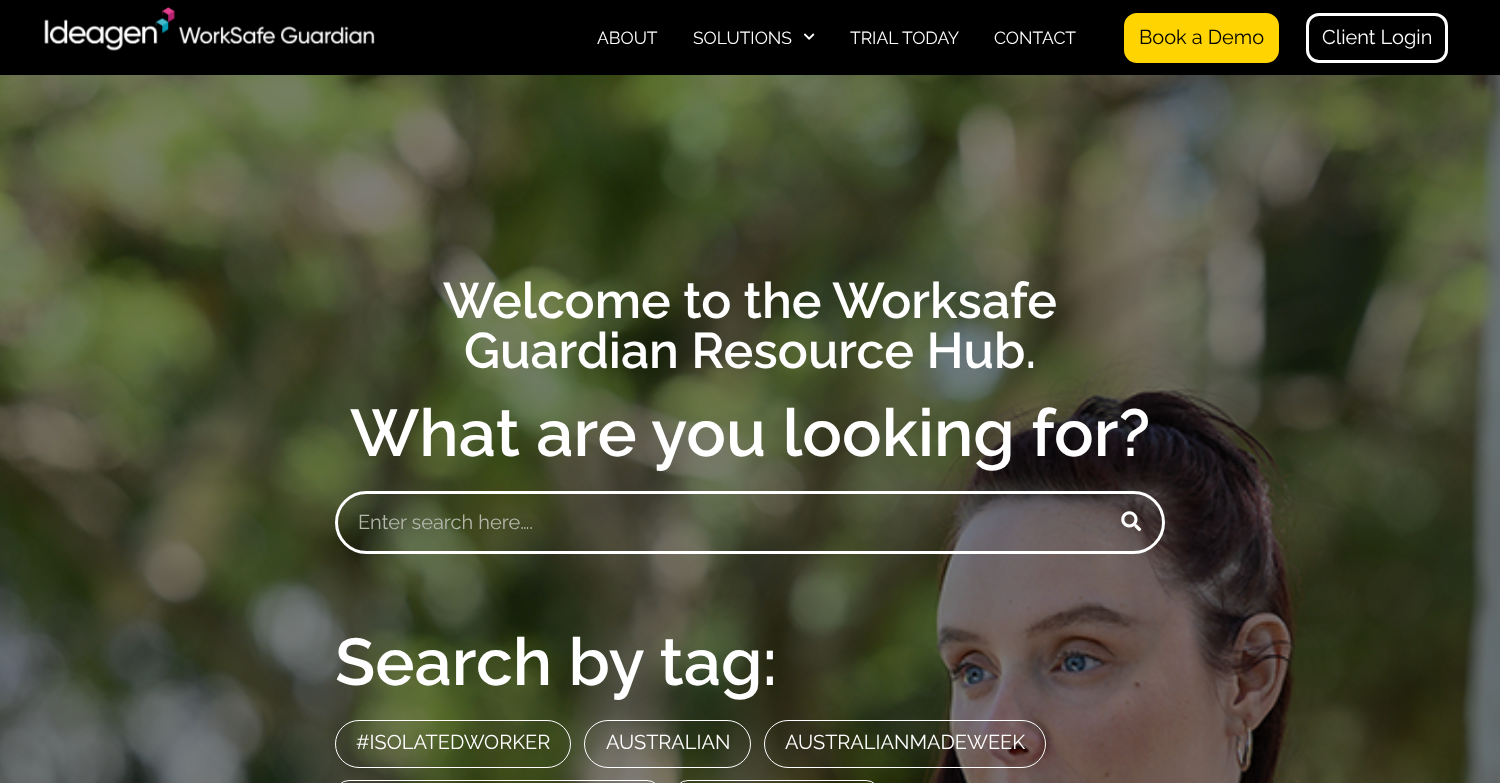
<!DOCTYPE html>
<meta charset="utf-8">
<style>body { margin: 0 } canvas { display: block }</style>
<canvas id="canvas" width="1500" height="783"></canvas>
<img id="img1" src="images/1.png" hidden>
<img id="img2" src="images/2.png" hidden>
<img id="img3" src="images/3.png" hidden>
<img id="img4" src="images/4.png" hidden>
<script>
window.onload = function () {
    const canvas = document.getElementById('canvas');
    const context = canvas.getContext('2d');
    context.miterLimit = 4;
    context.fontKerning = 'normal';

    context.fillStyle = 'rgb(0, 0, 0)';
    context.fillRect(0, 0, 1500, 783);
    context.drawImage(document.getElementById('img1'), 44, 7, 331, 44);
    context.drawImage(document.getElementById('img2'), 803, 33, 12, 7);
    context.fillStyle = 'rgb(255, 212, 0)';
    context.beginPath();
    context.roundRect(1125.5, 14.5, 152, 47, 11.5);
    context.fill();
    context.strokeStyle = 'rgb(255, 212, 0)';
    context.lineWidth = 3;
    context.stroke();
    context.beginPath();
    context.roundRect(1307.5, 14.5, 139, 47, 11.5);
    context.strokeStyle = 'rgb(255, 255, 255)';
    context.stroke();
    context.drawImage(document.getElementById('img3'), 0, 75, 1500, 708);
    context.beginPath();
    context.roundRect(336.5, 492.5, 827, 60, 30);
    context.stroke();
    context.drawImage(document.getElementById('img4'), 1121, 511, 21, 21);
    context.beginPath();
    context.roundRect(335.5, 720.5, 235, 47, 23.5);
    context.lineWidth = 1;
    context.stroke();
    context.beginPath();
    context.roundRect(584.5, 720.5, 166, 47, 23.5);
    context.stroke();
    context.beginPath();
    context.roundRect(764.5, 720.5, 281, 47, 23.5);
    context.stroke();
    context.beginPath();
    context.roundRect(335.5, 780.5, 325, 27, 23.5);
    context.stroke();
    context.beginPath();
    context.roundRect(674.5, 780.5, 205, 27, 23.5);
    context.stroke();
    context.font = '17.5px Raleway';
    context.fillStyle = 'rgb(255, 255, 255)';
    context.fillText('ABOUT', 597, 44);
    context.fillText('SOLUTIONS', 693, 44);
    context.fillText('TRIAL TODAY', 850, 44);
    context.fillText('CONTACT', 994, 44);
    context.font = '20px Raleway';
    context.fillStyle = 'rgb(0, 0, 0)';
    context.fillText('Book a Demo', 1139, 44);
    context.fillStyle = 'rgb(255, 255, 255)';
    context.fillText('Client Login', 1322, 44);
    context.font = '600 50px Raleway';
    context.fillText('Welcome to the Worksafe', 443, 318);
    context.fillText('Guardian Resource Hub.', 464, 368);
    context.font = '600 66px Raleway';
    context.fillText('What are you looking for?', 350, 456);
    context.font = '20px Raleway';
    context.fillStyle = 'rgb(180, 184, 171)';
    context.fillText('Enter search here….', 358, 529);
    context.font = '600 66px Raleway';
    context.fillStyle = 'rgb(255, 255, 255)';
    context.fillText('Search by tag:', 335, 685);
    context.font = '20px Raleway';
    context.fillText('#ISOLATEDWORKER', 356, 749);
    context.fillText('AUSTRALIAN', 606, 749);
    context.fillText('AUSTRALIANMADEWEEK', 785, 749);
};
</script>
